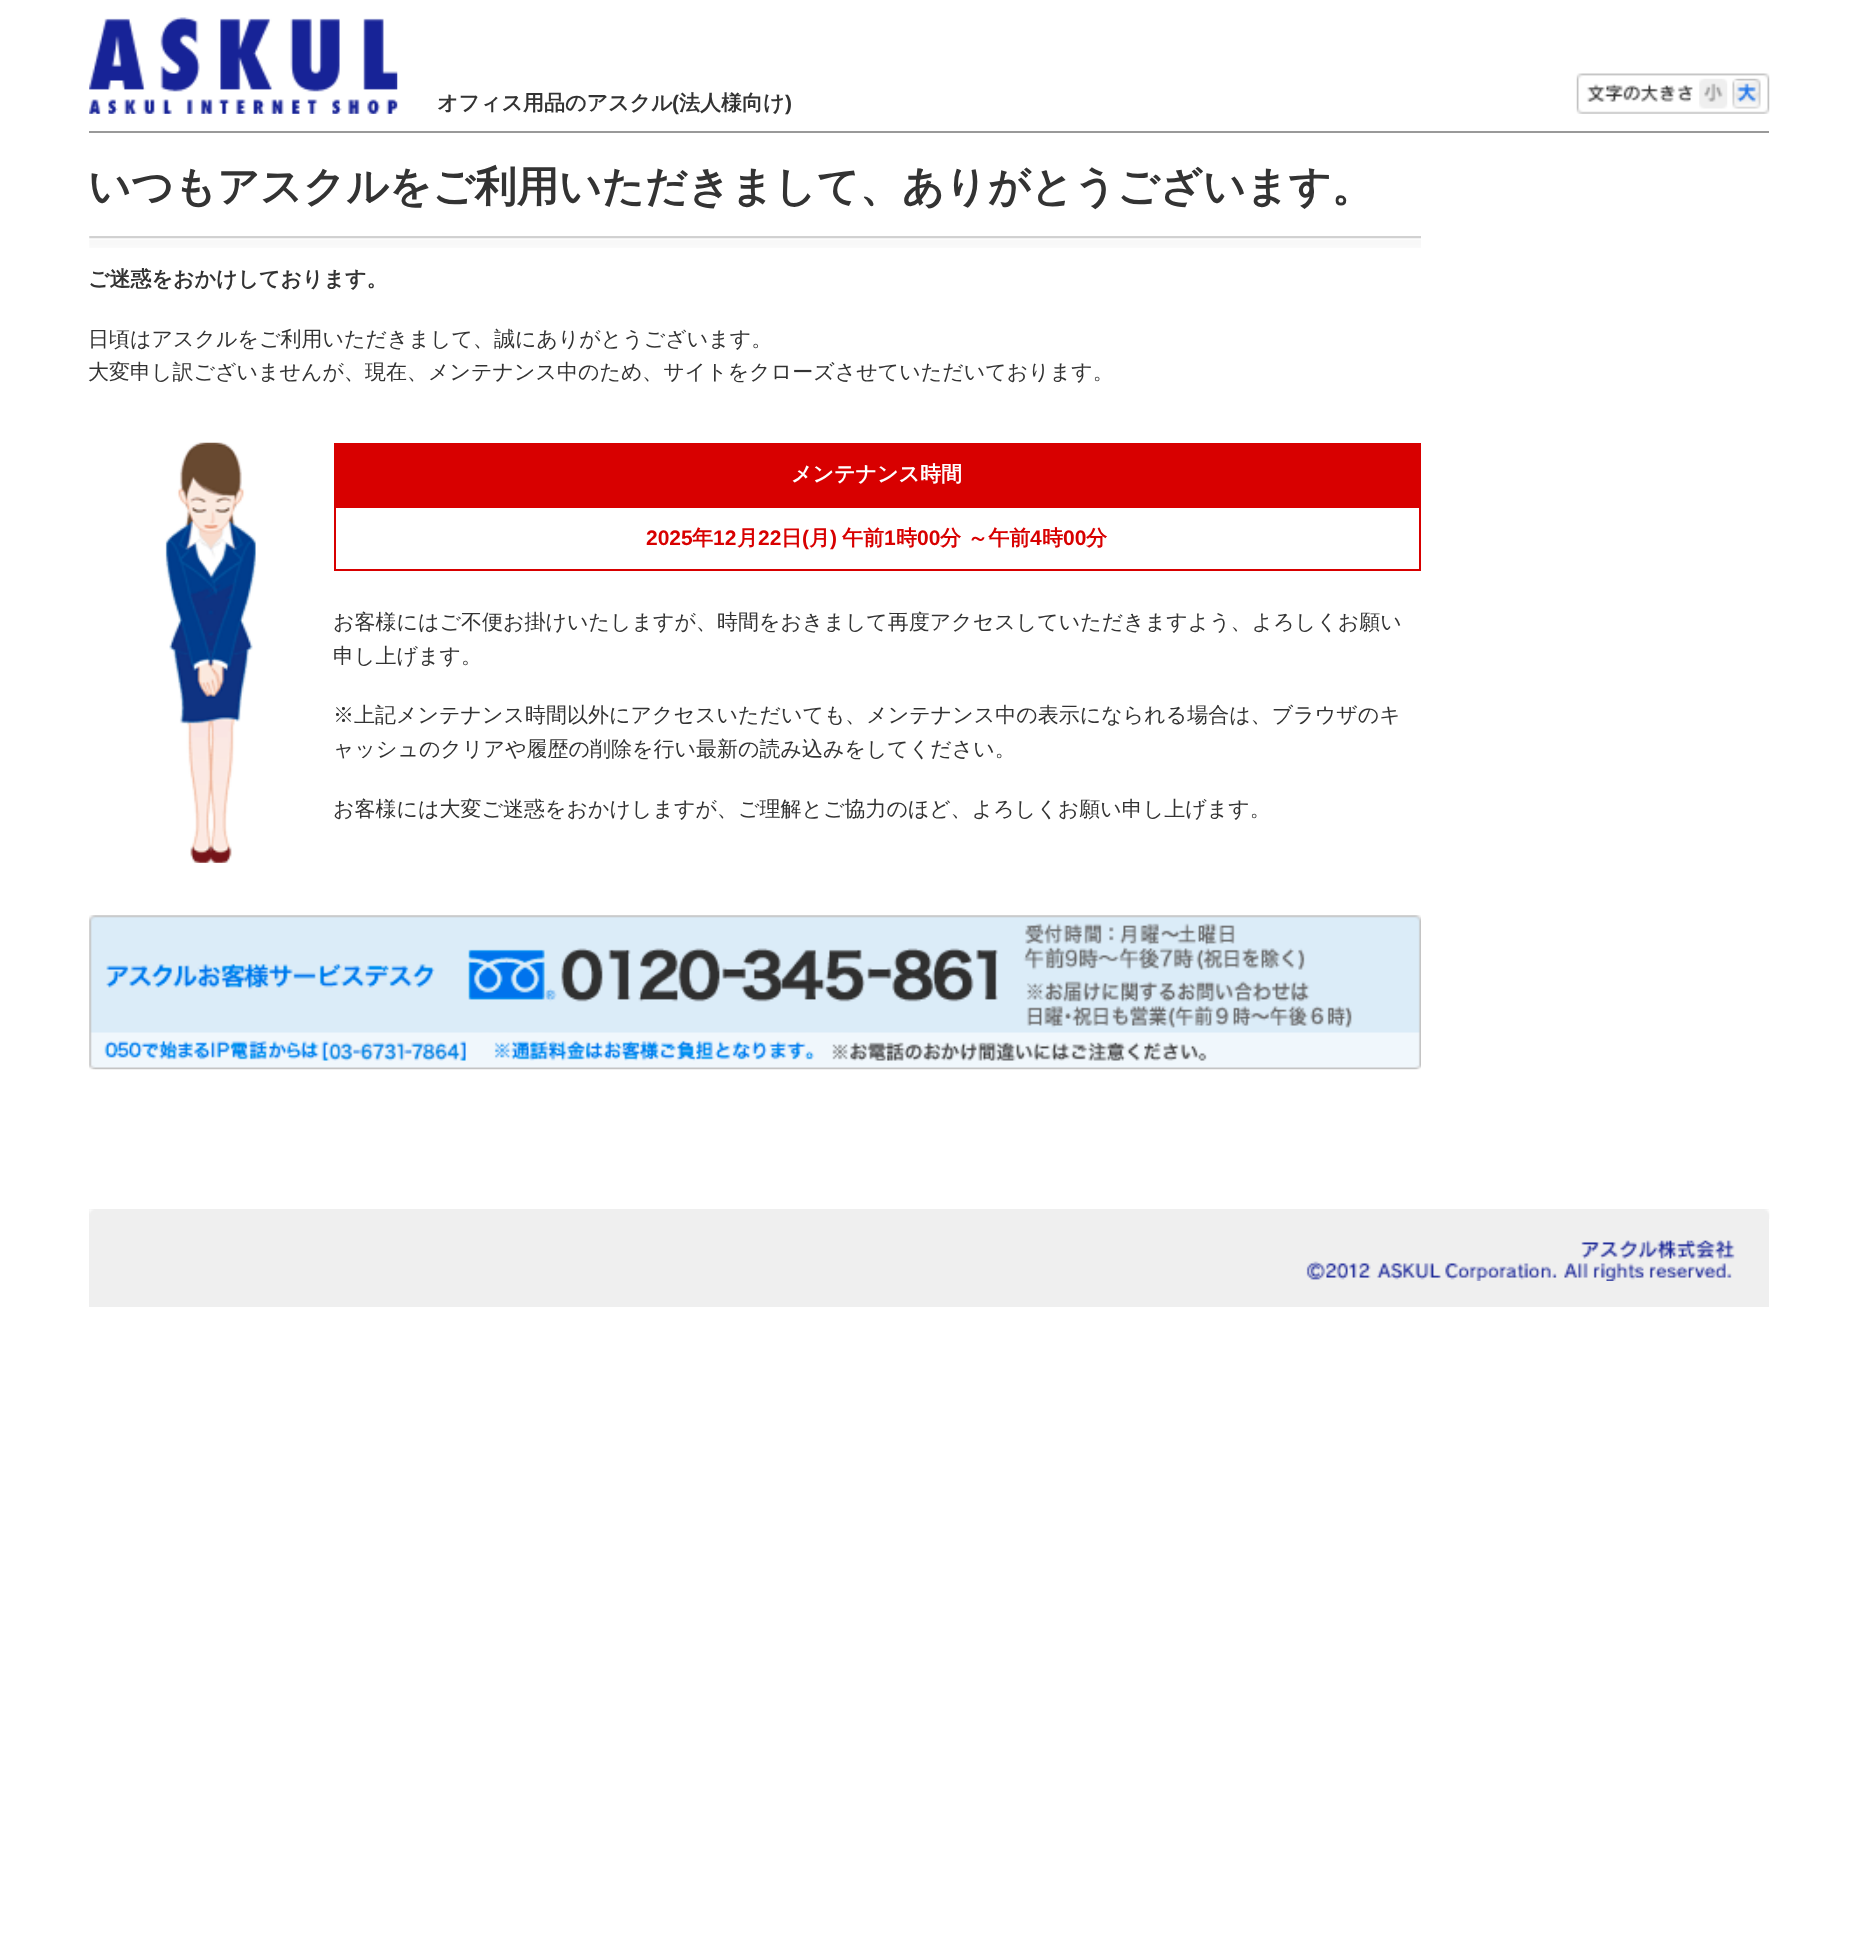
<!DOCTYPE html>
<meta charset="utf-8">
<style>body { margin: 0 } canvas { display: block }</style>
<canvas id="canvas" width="1856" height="1960"></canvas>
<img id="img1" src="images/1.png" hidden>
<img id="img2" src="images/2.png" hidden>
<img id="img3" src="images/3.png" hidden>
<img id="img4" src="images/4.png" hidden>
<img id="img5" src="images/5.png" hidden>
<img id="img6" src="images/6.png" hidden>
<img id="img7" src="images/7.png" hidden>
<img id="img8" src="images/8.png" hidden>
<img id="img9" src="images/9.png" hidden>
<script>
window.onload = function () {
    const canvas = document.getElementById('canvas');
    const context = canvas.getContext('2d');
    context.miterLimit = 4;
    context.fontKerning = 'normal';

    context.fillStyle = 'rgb(255, 255, 255)';
    context.fillRect(0, 0, 1856, 1960);
    context.fillStyle = 'rgb(153, 153, 153)';
    context.fillRect(89, 131, 1680, 2);
    context.drawImage(document.getElementById('img1'), 89, 17, 309, 97);
    context.drawImage(document.getElementById('img2'), 1576, 73, 194, 41);
    context.drawImage(document.getElementById('img3'), 1699, 78, 29, 31);
    context.drawImage(document.getElementById('img4'), 1732, 78, 29, 31);
    context.drawImage(document.getElementById('img5'), 89, 236, 1332, 12);
    context.drawImage(document.getElementById('img6'), 165, 442, 91, 421);
    context.fillStyle = 'rgb(216, 0, 0)';
    context.fillRect(334, 445, 1085, 61);
    context.fillRect(334, 443, 1087, 2);
    context.fillRect(334, 506, 1087, 2);
    context.fillRect(1419, 506, 2, 65);
    context.fillRect(1419, 443, 2, 65);
    context.fillRect(334, 569, 1087, 2);
    context.fillRect(334, 506, 2, 65);
    context.drawImage(document.getElementById('img7'), 89, 915, 1332, 155);
    context.fillStyle = 'rgb(239, 239, 239)';
    context.fillRect(89, 1209, 1680, 98);
    context.drawImage(document.getElementById('img8'), 89, 1209, 1681, 10);
    context.drawImage(document.getElementById('img9'), 1306, 1240, 429, 41);
    context.font = 'bold 21px WenQuanYi Zen Hei';
    context.fillStyle = 'rgb(51, 51, 51)';
    context.fillText('オフィス用品のアスクル', 437, 110);
    context.font = 'bold 21px Liberation Sans';
    context.fillText('(', 672, 110);
    context.font = 'bold 21px WenQuanYi Zen Hei';
    context.fillText('法人様向け', 679, 110);
    context.font = 'bold 21px Liberation Sans';
    context.fillText(')', 785, 110);
    context.font = 'bold 42px WenQuanYi Zen Hei';
    context.fillText('いつもアスクルをご利用いただきまして、ありがとうございます。', 88, 201);
    context.font = 'bold 21px WenQuanYi Zen Hei';
    context.fillText('ご迷惑をおかけしております。', 88, 286);
    context.font = '500 21px WenQuanYi Zen Hei';
    context.fillText('日頃はアスクルをご利用いただきまして、誠にありがとうございます。', 88, 346);
    context.fillText('大変申し訳ございませんが、現在、メンテナンス中のため、サイトをクローズさせていただいております。', 88, 379);
    context.font = 'bold 21px WenQuanYi Zen Hei';
    context.fillStyle = 'rgb(255, 255, 255)';
    context.fillText('メンテナンス時間', 791, 481);
    context.font = 'bold 21px Liberation Sans';
    context.fillStyle = 'rgb(216, 0, 0)';
    context.fillText('2025', 646, 545);
    context.font = 'bold 21px WenQuanYi Zen Hei';
    context.fillText('年', 692, 545);
    context.font = 'bold 21px Liberation Sans';
    context.fillText('12', 713, 545);
    context.font = 'bold 21px WenQuanYi Zen Hei';
    context.fillText('月', 737, 545);
    context.font = 'bold 21px Liberation Sans';
    context.fillText('22', 758, 545);
    context.font = 'bold 21px WenQuanYi Zen Hei';
    context.fillText('日', 781, 545);
    context.font = 'bold 21px Liberation Sans';
    context.fillText('(', 802, 545);
    context.font = 'bold 21px WenQuanYi Zen Hei';
    context.fillText('月', 809, 545);
    context.font = 'bold 21px Liberation Sans';
    context.fillText(')', 830, 545);
    context.font = 'bold 21px WenQuanYi Zen Hei';
    context.fillText('午前', 842, 545);
    context.font = 'bold 21px Liberation Sans';
    context.fillText('1', 884, 545);
    context.font = 'bold 21px WenQuanYi Zen Hei';
    context.fillText('時', 896, 545);
    context.font = 'bold 21px Liberation Sans';
    context.fillText('00', 917, 545);
    context.font = 'bold 21px WenQuanYi Zen Hei';
    context.fillText('分 ～午前', 940, 545);
    context.font = 'bold 21px Liberation Sans';
    context.fillText('4', 1030, 545);
    context.font = 'bold 21px WenQuanYi Zen Hei';
    context.fillText('時', 1042, 545);
    context.font = 'bold 21px Liberation Sans';
    context.fillText('00', 1063, 545);
    context.font = 'bold 21px WenQuanYi Zen Hei';
    context.fillText('分', 1086, 545);
    context.font = '500 21px WenQuanYi Zen Hei';
    context.fillStyle = 'rgb(51, 51, 51)';
    context.fillText('お客様にはご不便お掛けいたしますが、時間をおきまして再度アクセスしていただきますよう、よろしくお願い', 333, 629);
    context.fillText('申し上げます。', 333, 663);
    context.fillText('※上記メンテナンス時間以外にアクセスいただいても、メンテナンス中の表示になられる場合は、ブラウザのキ', 333, 722);
    context.fillText('ャッシュのクリアや履歴の削除を行い最新の読み込みをしてください。', 333, 756);
    context.fillText('お客様には大変ご迷惑をおかけしますが、ご理解とご協力のほど、よろしくお願い申し上げます。', 333, 816);
};
</script>
